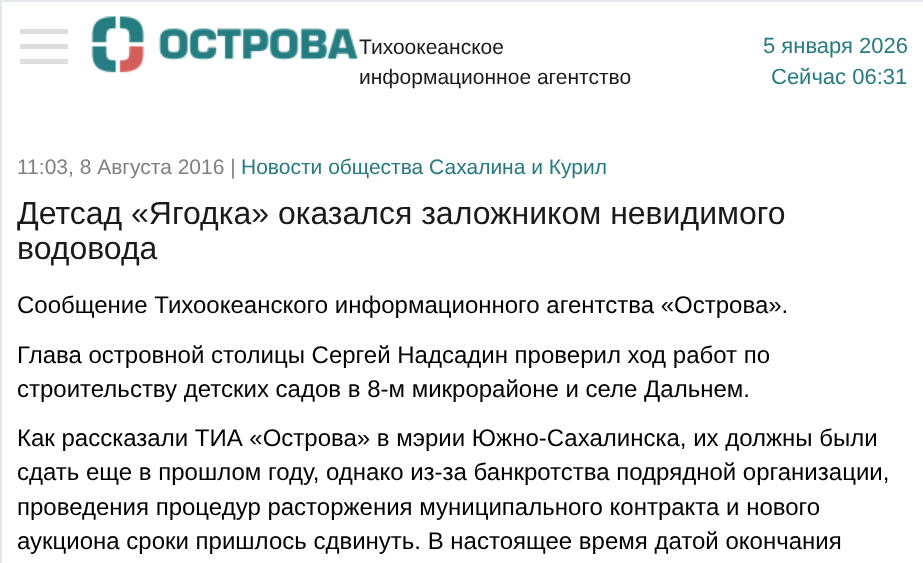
<!DOCTYPE html>
<meta charset="utf-8">
<style>body { margin: 0 } canvas { display: block }</style>
<canvas id="canvas" width="923" height="563"></canvas>
<img id="img1" src="images/1.png" hidden>
<script>
window.onload = function () {
    const canvas = document.getElementById('canvas');
    const context = canvas.getContext('2d');
    context.miterLimit = 4;
    context.fontKerning = 'normal';

    context.fillStyle = 'rgb(228, 232, 237)';
    context.fillRect(0, 0, 923, 563);
    context.fillStyle = 'rgb(255, 255, 255)';
    context.fillRect(2, 2, 921, 561);
    context.fillStyle = 'rgb(221, 221, 221)';
    context.fillRect(20, 29, 48, 5);
    context.fillRect(20, 44, 48, 5);
    context.fillRect(20, 59, 48, 5);
    context.drawImage(document.getElementById('img1'), 91, 16, 268, 57);
    context.font = '21px Liberation Sans';
    context.fillStyle = 'rgb(26, 26, 26)';
    context.fillText('Тихоокеанское', 359, 54);
    context.fillText('информационное агентство', 359, 84);
    context.font = '22px Liberation Sans';
    context.fillStyle = 'rgb(38, 122, 128)';
    context.fillText('5 января 2026', 763, 53);
    context.fillText('Сейчас 06:31', 771, 84);
    context.font = '21px Liberation Sans';
    context.fillStyle = 'rgb(128, 128, 128)';
    context.fillText('11:03, 8 Августа 2016 |', 17, 174);
    context.fillStyle = 'rgb(38, 122, 128)';
    context.fillText('Новости общества Сахалина и Курил', 241, 174);
    context.font = '32px Liberation Sans';
    context.fillStyle = 'rgb(26, 26, 26)';
    context.fillText('Детсад «Ягодка» оказался заложником невидимого', 17, 224);
    context.fillText('водовода', 17, 259);
    context.font = '24px Liberation Sans';
    context.fillStyle = 'rgb(0, 0, 0)';
    context.fillText('Сообщение Тихоокеанского информационного агентства «Острова».', 17, 313);
    context.fillText('Глава островной столицы Сергей Надсадин проверил ход работ по', 17, 363);
    context.fillText('строительству детских садов в 8-м микрорайоне и селе Дальнем.', 17, 397);
    context.fillText('Как рассказали ТИА «Острова» в мэрии Южно-Сахалинска, их должны были', 17, 446);
    context.fillText('сдать еще в прошлом году, однако из-за банкротства подрядной организации,', 17, 480);
    context.fillText('проведения процедур расторжения муниципального контракта и нового', 17, 515);
    context.fillText('аукциона сроки пришлось сдвинуть. В настоящее время датой окончания', 17, 549);
};
</script>
